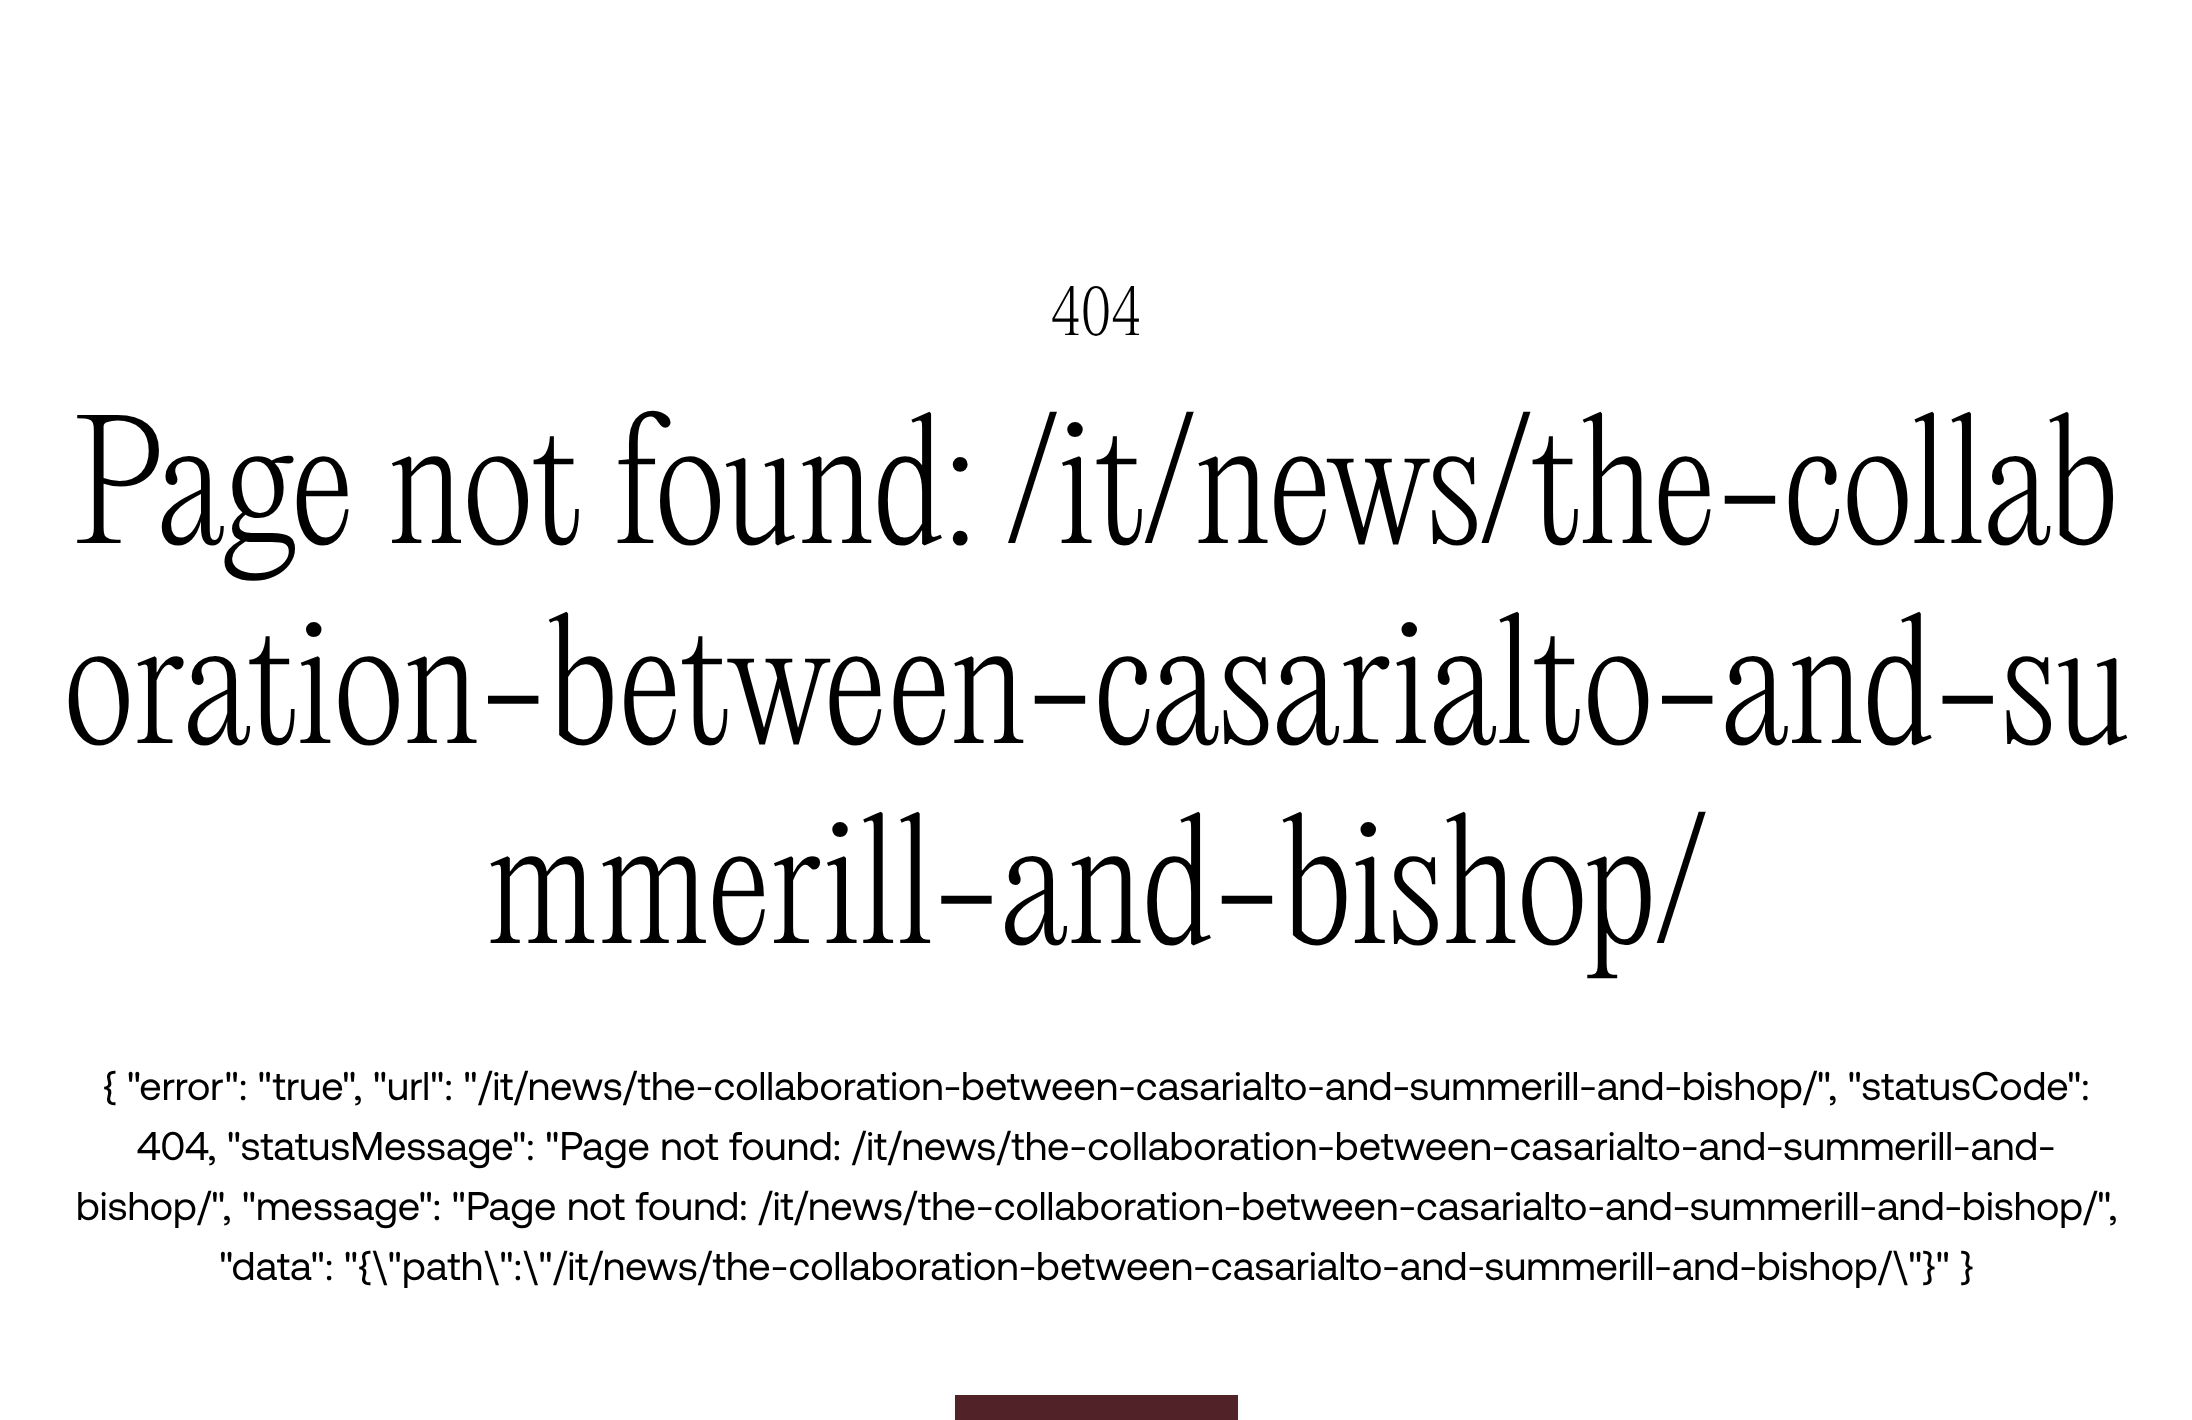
<!DOCTYPE html>
<meta charset="utf-8">
<style>body { margin: 0 } canvas { display: block }</style>
<canvas id="canvas" width="2192" height="1420"></canvas>
<script>
window.onload = function () {
    const canvas = document.getElementById('canvas');
    const context = canvas.getContext('2d');
    context.miterLimit = 4;
    context.fontKerning = 'normal';

    context.fillStyle = 'rgb(255, 255, 255)';
    context.fillRect(0, 0, 2192, 1420);
    context.fillStyle = 'rgba(0, 0, 0, 0.05)';
    context.filter = 'blur(2.5px)';
    context.beginPath();
    context.rect(955, 1398, 283, 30);
    context.fill();
    context.filter = 'none';
    context.fillStyle = 'rgb(81, 34, 39)';
    context.fillRect(955, 1395, 283, 25);
    context.font = '200 60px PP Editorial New';
    context.fillStyle = 'rgb(0, 0, 0)';
    context.fillText('404', 1051, 335);
    context.font = '200 160px PP Editorial New';
    context.fillText('Page not found: /it/news/the-collab', 74, 543);
    context.fillText('oration-between-casarialto-and-su', 63, 743);
    context.fillText('mmerill-and-bishop/', 486, 943);
    context.font = '40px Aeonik';
    context.fillText('{ "error": "true", "url": "/it/news/the-collaboration-between-casarialto-and-summerill-and-bishop/", "statusCode":', 103, 1100);
    context.fillText('404, "statusMessage": "Page not found: /it/news/the-collaboration-between-casarialto-and-summerill-and-', 137, 1160);
    context.fillText('bishop/", "message": "Page not found: /it/news/the-collaboration-between-casarialto-and-summerill-and-bishop/",', 76, 1220);
    context.fillText('"data": "{\\"path\\":\\"/it/news/the-collaboration-between-casarialto-and-summerill-and-bishop/\\"}" }', 219, 1280);
};
</script>
